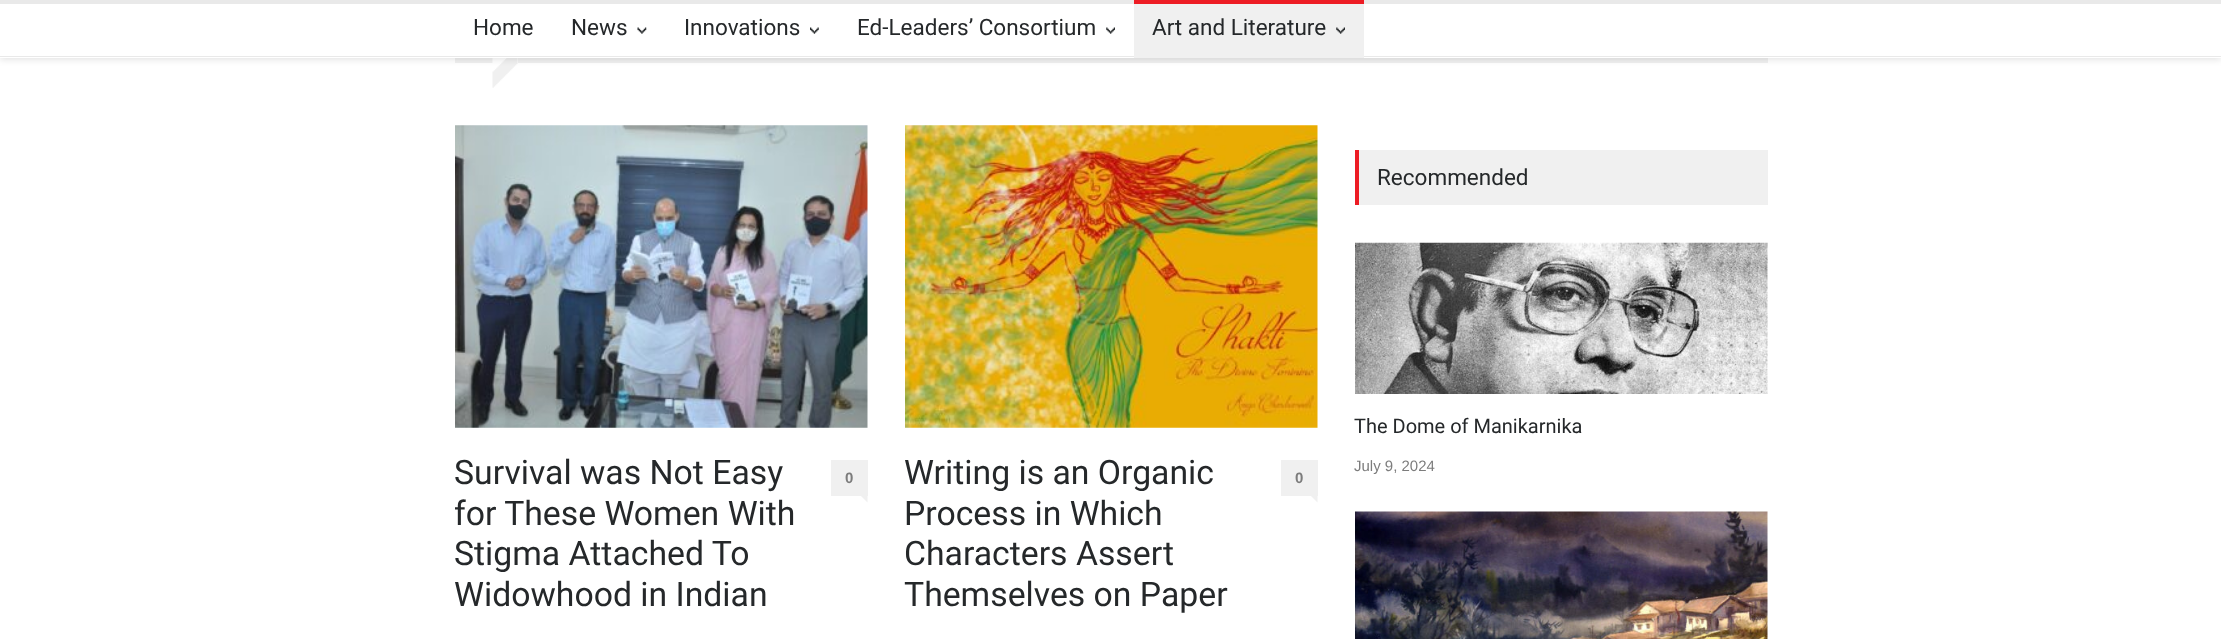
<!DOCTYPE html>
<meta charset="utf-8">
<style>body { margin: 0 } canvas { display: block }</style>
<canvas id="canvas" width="2221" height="639"></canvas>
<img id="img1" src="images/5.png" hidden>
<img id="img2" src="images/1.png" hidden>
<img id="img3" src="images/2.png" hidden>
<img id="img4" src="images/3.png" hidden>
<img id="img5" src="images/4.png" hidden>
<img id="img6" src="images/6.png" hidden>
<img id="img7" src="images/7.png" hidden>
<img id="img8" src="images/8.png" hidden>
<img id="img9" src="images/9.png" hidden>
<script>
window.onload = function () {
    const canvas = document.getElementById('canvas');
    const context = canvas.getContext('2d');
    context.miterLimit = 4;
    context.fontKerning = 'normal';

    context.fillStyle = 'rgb(255, 255, 255)';
    context.fillRect(0, 0, 2221, 639);
    context.fillStyle = 'rgb(240, 240, 240)';
    context.fillRect(455, 58, 38, 5);
    context.drawImage(document.getElementById('img1'), 492, 58, 26, 30);
    context.fillRect(518, 58, 1250, 5);
    context.fillStyle = 'rgba(0, 0, 0, 0.1)';
    context.filter = 'blur(3px)';
    context.beginPath();
    context.rect(0, 3, 2221, 57);
    context.fill();
    context.filter = 'none';
    context.fillStyle = 'rgb(255, 255, 255)';
    context.fillRect(0, 4, 2221, 54);
    context.fillStyle = 'rgb(233, 233, 233)';
    context.fillRect(0, 0, 2221, 4);
    context.fillRect(0, 56, 2221, 1);
    context.drawImage(document.getElementById('img2'), 637, 27, 10, 7);
    context.drawImage(document.getElementById('img3'), 810, 27, 9, 7);
    context.drawImage(document.getElementById('img4'), 1106, 27, 9, 7);
    context.fillStyle = 'rgb(240, 240, 240)';
    context.fillRect(1134, 4, 230, 54);
    context.fillStyle = 'rgb(237, 28, 36)';
    context.fillRect(1134, 0, 230, 4);
    context.drawImage(document.getElementById('img5'), 1336, 27, 9, 7);
    context.fillStyle = 'rgb(240, 240, 240)';
    context.fillRect(1359, 150, 409, 55);
    context.fillStyle = 'rgb(237, 28, 36)';
    context.fillRect(1355, 150, 4, 55);
    context.drawImage(document.getElementById('img6'), 1355, 242, 413, 152);
    context.drawImage(document.getElementById('img7'), 1355, 511, 413, 128);
    context.drawImage(document.getElementById('img8'), 455, 125, 413, 303);
    context.fillStyle = 'rgb(240, 240, 240)';
    context.fillRect(831, 460, 37, 36);
    context.beginPath();
    context.moveTo(861, 496);
    context.lineTo(867.5, 496);
    context.lineTo(867.5, 502.5);
    context.closePath();
    context.fill();
    context.drawImage(document.getElementById('img9'), 905, 125, 413, 303);
    context.fillRect(1281, 460, 37, 36);
    context.beginPath();
    context.moveTo(1311, 496);
    context.lineTo(1317.5, 496);
    context.lineTo(1317.5, 502.5);
    context.closePath();
    context.fill();
    context.font = '22.5px Roboto';
    context.fillStyle = 'rgb(37, 40, 42)';
    context.fillText('Home', 473, 35);
    context.fillText('News', 571, 35);
    context.fillText('Innovations', 684, 35);
    context.fillText('Ed-Leaders’ Consortium', 857, 35);
    context.fillText('Art and Literature', 1152, 35);
    context.fillText('Recommended', 1377, 185);
    context.font = '20px Roboto';
    context.fillText('The Dome of Manikarnika', 1354, 433);
    context.font = '15px Liberation Sans';
    context.fillStyle = 'rgb(124, 124, 124)';
    context.fillText('July 9, 2024', 1354, 471);
    context.font = '33.75px Roboto';
    context.fillStyle = 'rgb(37, 40, 42)';
    context.fillText('Survival was Not Easy', 454, 484);
    context.fillText('for These Women With', 454, 525);
    context.fillText('Stigma Attached To', 454, 565);
    context.fillText('Widowhood in Indian', 454, 606);
    context.font = 'bold 15px Liberation Sans';
    context.fillStyle = 'rgb(124, 124, 124)';
    context.fillText('0', 845, 483);
    context.font = '33.75px Roboto';
    context.fillStyle = 'rgb(37, 40, 42)';
    context.fillText('Writing is an Organic', 904, 484);
    context.fillText('Process in Which', 904, 525);
    context.fillText('Characters Assert', 904, 565);
    context.fillText('Themselves on Paper', 904, 606);
    context.font = 'bold 15px Liberation Sans';
    context.fillStyle = 'rgb(124, 124, 124)';
    context.fillText('0', 1295, 483);
};
</script>
